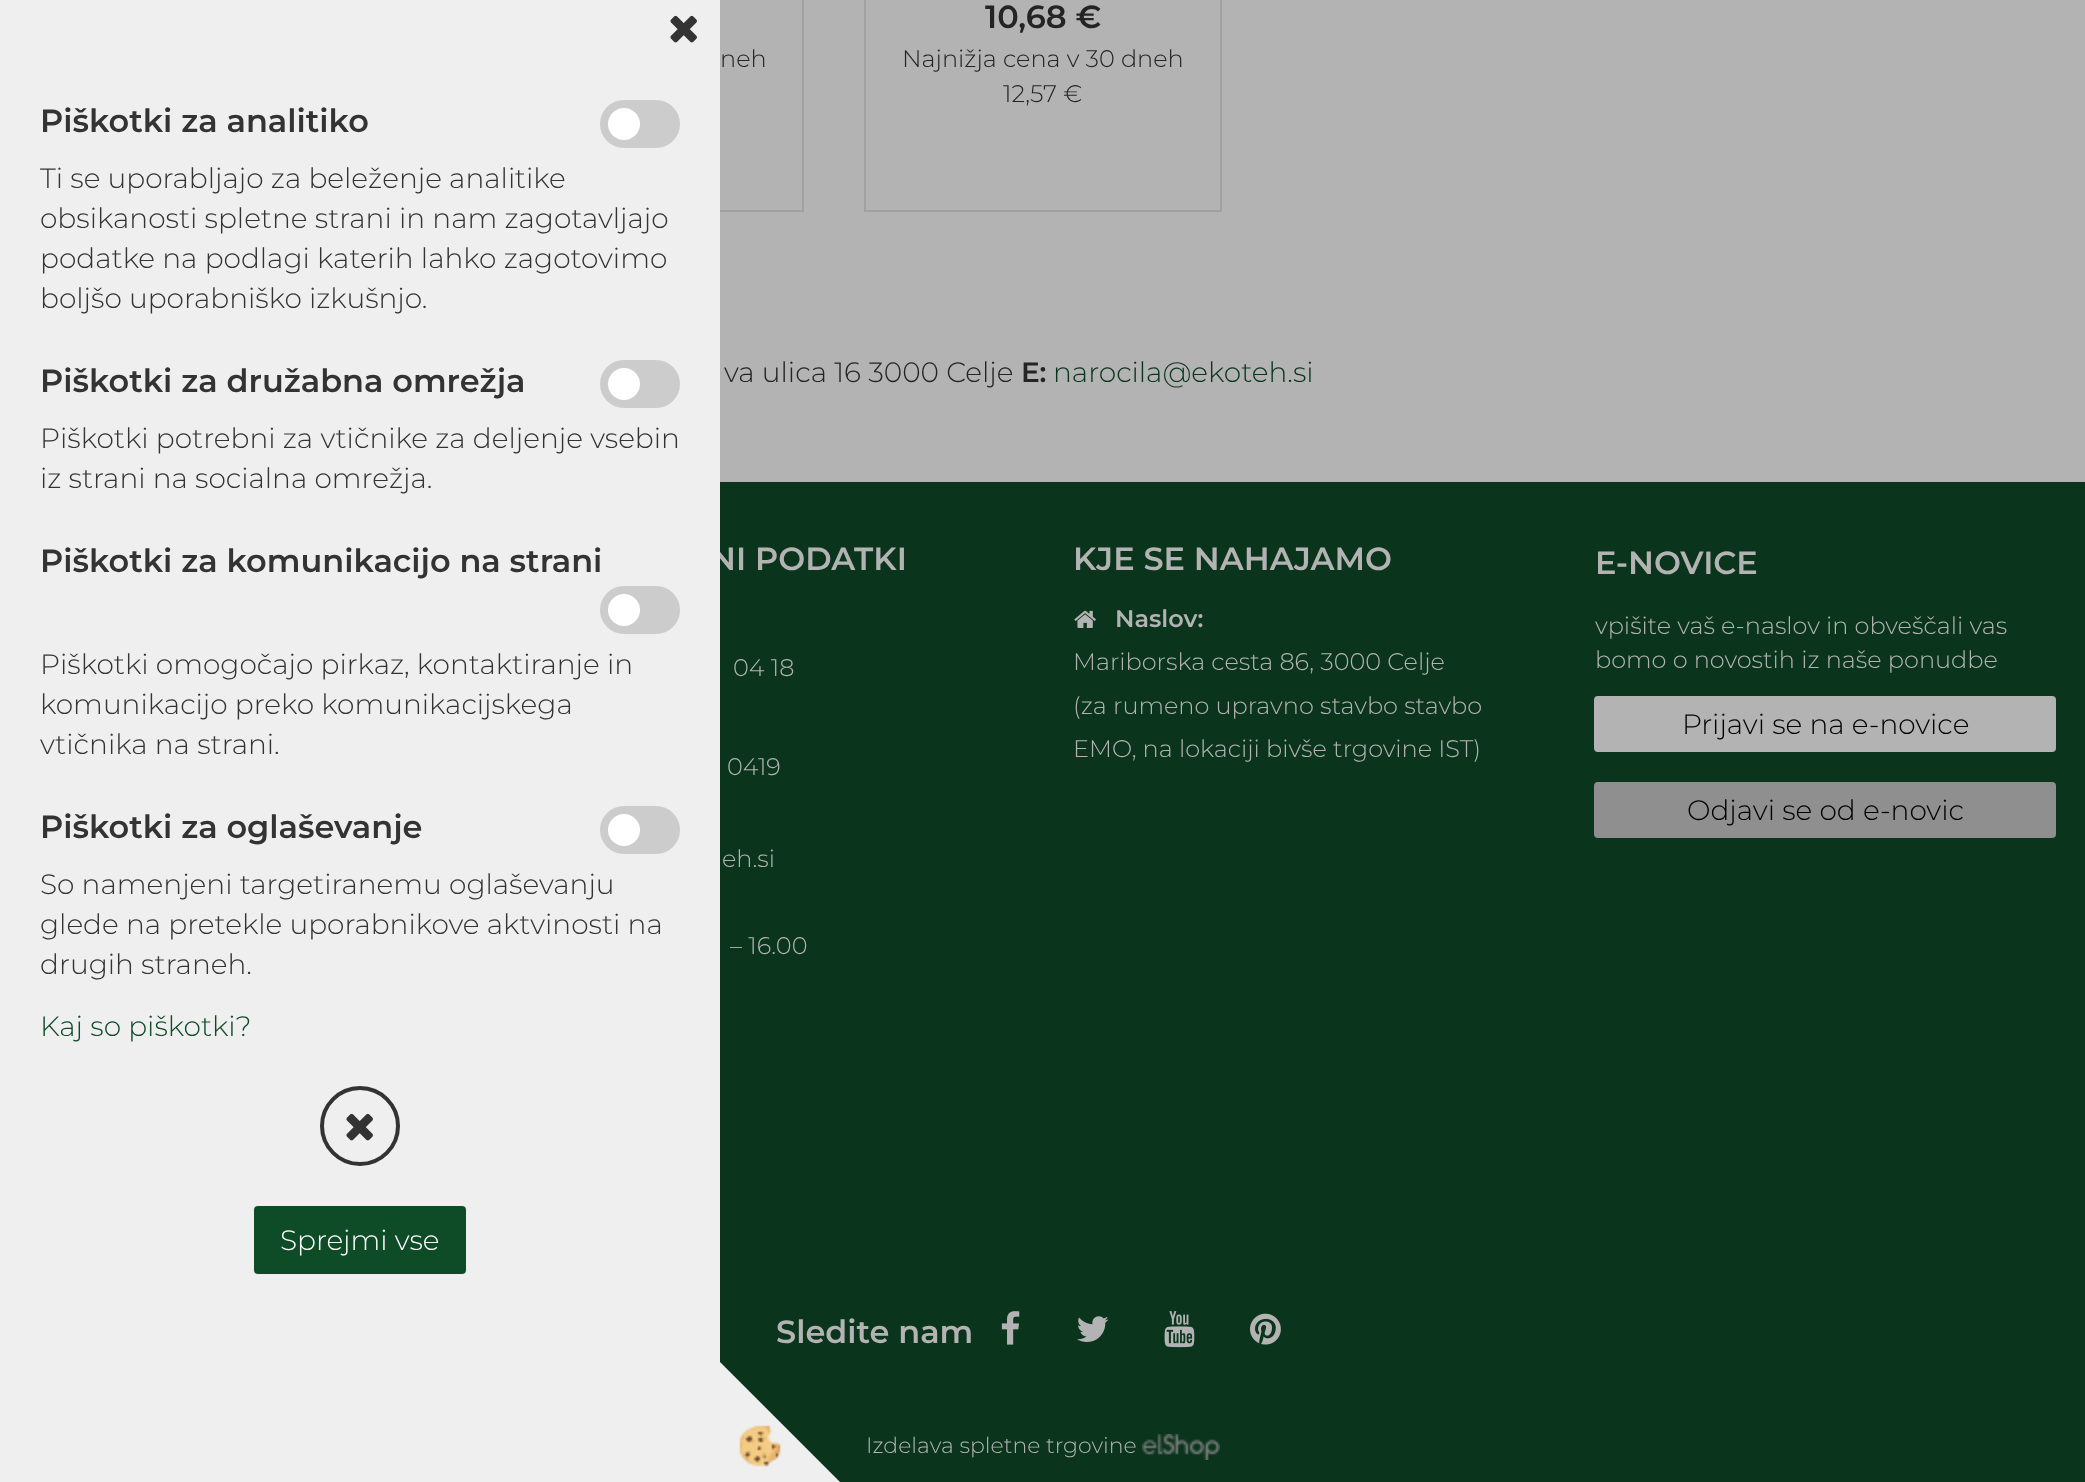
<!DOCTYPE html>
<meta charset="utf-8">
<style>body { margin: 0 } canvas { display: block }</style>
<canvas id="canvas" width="2085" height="1482"></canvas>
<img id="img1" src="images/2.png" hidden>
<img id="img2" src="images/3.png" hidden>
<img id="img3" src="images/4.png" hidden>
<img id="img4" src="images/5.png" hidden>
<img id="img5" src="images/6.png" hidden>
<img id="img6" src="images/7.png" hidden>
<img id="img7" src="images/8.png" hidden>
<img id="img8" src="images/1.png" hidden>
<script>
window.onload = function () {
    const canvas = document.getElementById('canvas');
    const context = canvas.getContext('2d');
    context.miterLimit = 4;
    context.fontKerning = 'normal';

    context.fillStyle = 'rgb(179, 179, 179)';
    context.fillRect(0, 0, 2085, 1482);
    context.fillStyle = 'rgb(10, 53, 28)';
    context.fillRect(720, 482, 1365, 928);
    context.fillRect(768, 1410, 1317, 72);
    context.fillStyle = 'rgb(239, 239, 239)';
    context.beginPath();
    context.moveTo(840, 1482);
    context.lineTo(720, 1482);
    context.lineTo(720, 1362);
    context.closePath();
    context.fill();
    context.drawImage(document.getElementById('img1'), 739, 1425, 42, 42);
    context.strokeStyle = 'rgb(161, 161, 161)';
    context.lineWidth = 2;
    context.strokeRect(449, -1, 354, 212);
    context.strokeRect(865, -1, 356, 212);
    context.drawImage(document.getElementById('img2'), 1074, 610, 22, 18);
    context.fillStyle = 'rgb(179, 179, 179)';
    context.beginPath();
    context.roundRect(1595, 697, 460, 54, 3);
    context.fill();
    context.strokeStyle = 'rgb(179, 179, 179)';
    context.stroke();
    context.fillStyle = 'rgb(143, 143, 143)';
    context.beginPath();
    context.roundRect(1595, 783, 460, 54, 3);
    context.fill();
    context.strokeStyle = 'rgb(143, 143, 143)';
    context.stroke();
    context.drawImage(document.getElementById('img3'), 1001, 1311, 19, 34);
    context.drawImage(document.getElementById('img4'), 1077, 1316, 32, 26);
    context.drawImage(document.getElementById('img5'), 1164, 1311, 31, 37);
    context.drawImage(document.getElementById('img6'), 1250, 1313, 31, 32);
    context.drawImage(document.getElementById('img7'), 1142, 1434, 78, 26);
    context.font = '300 24px Montserrat';
    context.fillStyle = 'rgb(36, 36, 36)';
    context.fillText('neh', 720, 67);
    context.font = '600 32px Montserrat';
    context.fillText('10,68 €', 985, 28);
    context.font = '300 24px Montserrat';
    context.fillText('Najnižja cena v 30 dneh', 902, 67);
    context.fillText('12,57 €', 1003, 102);
    context.font = '300 28px Montserrat';
    context.fillText('va ulica 16 3000 Celje', 724, 382);
    context.font = '600 28px Montserrat';
    context.fillText('E:', 1021, 382);
    context.font = '300 28px Montserrat';
    context.fillStyle = 'rgb(10, 53, 28)';
    context.fillText('narocila@ekoteh.si', 1053, 382);
    context.font = '600 32px Montserrat';
    context.fillStyle = 'rgb(179, 179, 179)';
    context.fillText('NI PODATKI', 710, 570);
    context.fillStyle = 'rgb(239, 239, 239)';
    context.fillRect(0, 0, 720, 1482);
    context.beginPath();
    context.arc(360, 1126, 38, 0, 2 * Math.PI);
    context.strokeStyle = 'rgb(51, 51, 51)';
    context.lineWidth = 4;
    context.stroke();
    context.drawImage(document.getElementById('img8'), 346, 1113, 27, 28);
    context.fillStyle = 'rgb(204, 204, 204)';
    context.beginPath();
    context.roundRect(600, 806, 80, 48, 24);
    context.fill();
    context.fillStyle = 'rgb(255, 255, 255)';
    context.beginPath();
    context.arc(624, 830, 16, 0, 2 * Math.PI);
    context.fill();
    context.fillStyle = 'rgb(204, 204, 204)';
    context.beginPath();
    context.roundRect(600, 586, 80, 48, 24);
    context.fill();
    context.fillStyle = 'rgb(255, 255, 255)';
    context.beginPath();
    context.arc(624, 610, 16, 0, 2 * Math.PI);
    context.fill();
    context.fillStyle = 'rgb(204, 204, 204)';
    context.beginPath();
    context.roundRect(600, 360, 80, 48, 24);
    context.fill();
    context.fillStyle = 'rgb(255, 255, 255)';
    context.beginPath();
    context.arc(624, 384, 16, 0, 2 * Math.PI);
    context.fill();
    context.fillStyle = 'rgb(204, 204, 204)';
    context.beginPath();
    context.roundRect(600, 100, 80, 48, 24);
    context.fill();
    context.fillStyle = 'rgb(255, 255, 255)';
    context.beginPath();
    context.arc(624, 124, 16, 0, 2 * Math.PI);
    context.fill();
    context.drawImage(document.getElementById('img8'), 670, 15, 27, 28);
    context.font = '300 28px Montserrat';
    context.fillStyle = 'rgb(14, 76, 40)';
    context.fillText('Kaj so piškotki?', 40, 1036);
    context.beginPath();
    context.roundRect(255, 1207, 210, 66, 3);
    context.fill();
    context.strokeStyle = 'rgb(14, 76, 40)';
    context.lineWidth = 2;
    context.stroke();
    context.fillStyle = 'rgb(255, 255, 255)';
    context.fillText('Sprejmi vse', 280, 1250);
    context.fillStyle = 'rgb(51, 51, 51)';
    context.fillText('drugih straneh.', 40, 974);
    context.fillText('glede na pretekle uporabnikove aktvinosti na', 40, 934);
    context.fillText('So namenjeni targetiranemu oglaševanju', 40, 894);
    context.font = '600 32px Montserrat';
    context.fillText('Piškotki za oglaševanje', 40, 838);
    context.font = '300 28px Montserrat';
    context.fillText('vtičnika na strani.', 40, 754);
    context.fillText('komunikacijo preko komunikacijskega', 40, 714);
    context.fillText('Piškotki omogočajo pirkaz, kontaktiranje in', 40, 674);
    context.font = '600 32px Montserrat';
    context.fillText('Piškotki za komunikacijo na strani', 40, 572);
    context.font = '300 28px Montserrat';
    context.fillText('iz strani na socialna omrežja.', 40, 488);
    context.fillText('Piškotki potrebni za vtičnike za deljenje vsebin', 40, 448);
    context.font = '600 32px Montserrat';
    context.fillText('Piškotki za družabna omrežja', 40, 392);
    context.font = '300 28px Montserrat';
    context.fillText('boljšo uporabniško izkušnjo.', 40, 308);
    context.fillText('podatke na podlagi katerih lahko zagotovimo', 40, 268);
    context.fillText('obsikanosti spletne strani in nam zagotavljajo', 40, 228);
    context.fillText('Ti se uporabljajo za beleženje analitike', 40, 188);
    context.font = '600 32px Montserrat';
    context.fillText('Piškotki za analitiko', 40, 132);
    context.font = '300 24px Montserrat';
    context.fillStyle = 'rgb(179, 179, 179)';
    context.fillText('04 18', 733, 676);
    context.fillText('0419', 727, 775);
    context.fillText('eh.si', 722, 867);
    context.fillText('– 16.00', 730, 954);
    context.font = '600 32px Montserrat';
    context.fillText('KJE SE NAHAJAMO', 1073, 570);
    context.font = '600 24px Montserrat';
    context.fillText('Naslov:', 1115, 627);
    context.font = '300 24px Montserrat';
    context.fillText('Mariborska cesta 86, 3000 Celje', 1073, 670);
    context.fillText('(za rumeno upravno stavbo stavbo', 1073, 714);
    context.fillText('EMO, na lokaciji bivše trgovine IST)', 1073, 757);
    context.font = '600 32px Montserrat';
    context.fillText('E-NOVICE', 1595, 574);
    context.font = '300 24px Montserrat';
    context.fillText('vpišite vaš e-naslov in obveščali vas', 1595, 634);
    context.fillText('bomo o novostih iz naše ponudbe', 1595, 668);
    context.font = '300 28px Montserrat';
    context.fillStyle = 'rgb(0, 0, 0)';
    context.fillText('Prijavi se na e-novice', 1682, 734);
    context.fillText('Odjavi se od e-novic', 1687, 820);
    context.font = '600 32px Montserrat';
    context.fillStyle = 'rgb(179, 179, 179)';
    context.fillText('Sledite nam', 776, 1343);
    context.font = '300 22px Montserrat';
    context.fillText('Izdelava spletne trgovine', 866, 1453);
};
</script>
